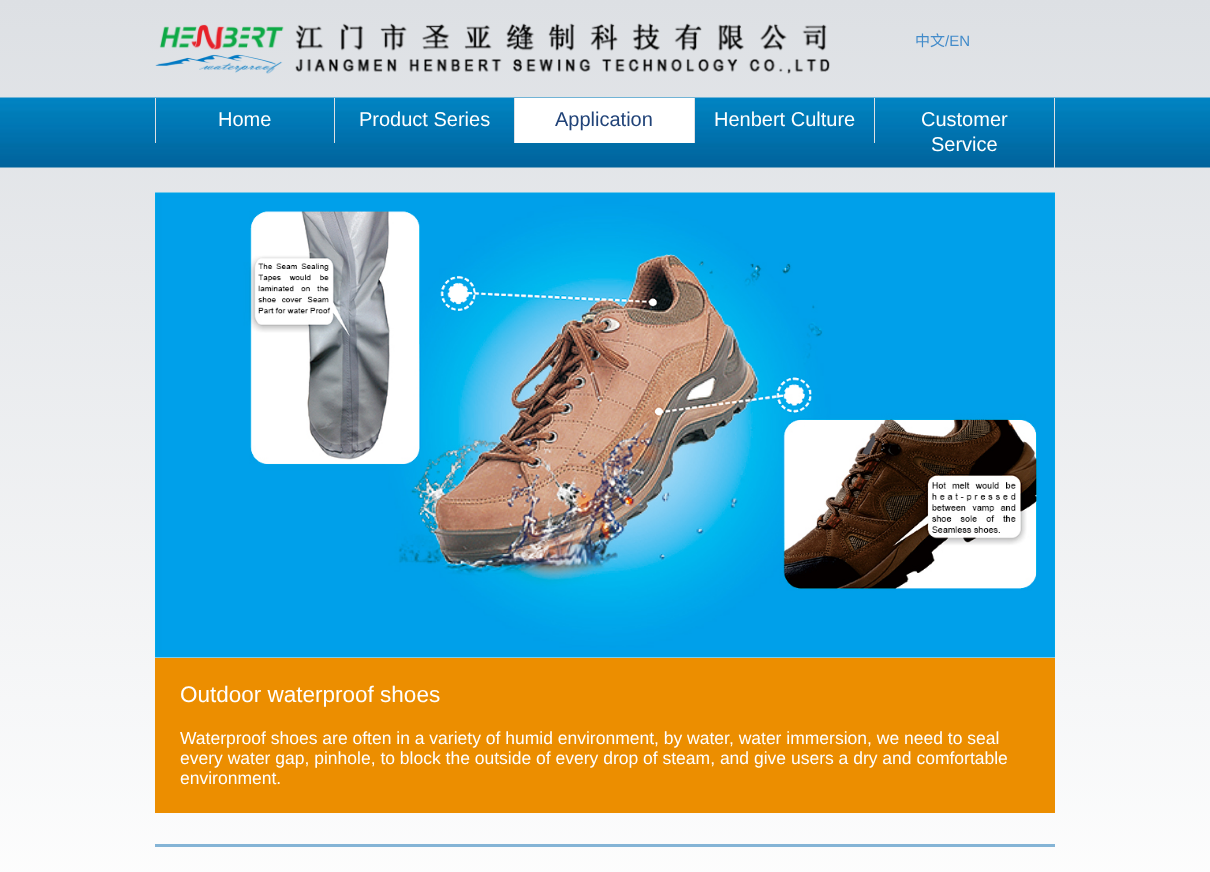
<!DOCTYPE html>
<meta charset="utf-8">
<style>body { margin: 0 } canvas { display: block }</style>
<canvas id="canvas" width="1210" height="872"></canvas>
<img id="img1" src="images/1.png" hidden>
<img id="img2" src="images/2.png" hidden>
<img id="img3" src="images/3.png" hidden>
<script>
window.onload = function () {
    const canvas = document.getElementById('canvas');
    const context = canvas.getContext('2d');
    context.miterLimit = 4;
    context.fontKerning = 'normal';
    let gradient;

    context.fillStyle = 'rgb(255, 255, 255)';
    context.fillRect(0, 0, 1210, 872);
    gradient = context.createLinearGradient(605, 0, 605, 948);
    gradient.addColorStop(0, 'rgb(221, 224, 228)');
    gradient.addColorStop(1, 'rgb(255, 255, 255)');
    context.fillStyle = gradient;
    context.fillRect(0, 0, 1210, 872);
    context.drawImage(document.getElementById('img1'), 155, 23, 675, 51);
    context.drawImage(document.getElementById('img2'), 0, 97, 1210, 71);
    context.fillStyle = 'rgb(221, 224, 228)';
    context.fillRect(334, 98, 1, 45);
    context.fillRect(155, 98, 1, 45);
    context.fillRect(514, 98, 1, 45);
    context.fillStyle = 'rgb(255, 255, 255)';
    context.fillRect(515, 98, 179, 45);
    context.fillStyle = 'rgb(221, 224, 228)';
    context.fillRect(694, 98, 1, 45);
    context.fillRect(874, 98, 1, 45);
    context.fillRect(1054, 98, 1, 70);
    context.drawImage(document.getElementById('img3'), 155, 192, 900, 466);
    context.fillStyle = 'rgb(236, 142, 0)';
    context.fillRect(155, 658, 900, 155);
    context.fillStyle = 'rgb(132, 180, 214)';
    context.fillRect(155, 844, 900, 3);
    context.font = '15px Noto Sans CJK SC';
    context.fillStyle = 'rgb(66, 139, 202)';
    context.fillText('中文', 915, 46);
    context.font = '15px Liberation Sans';
    context.fillText('/EN', 945, 46);
    context.font = '20px Liberation Sans';
    context.fillStyle = 'rgb(255, 255, 255)';
    context.fillText('Home', 218, 126);
    context.fillText('Product Series', 359, 126);
    context.fillStyle = 'rgb(33, 67, 120)';
    context.fillText('Application', 555, 126);
    context.fillStyle = 'rgb(255, 255, 255)';
    context.fillText('Henbert Culture', 714, 126);
    context.fillText('Customer', 921, 126);
    context.fillText('Service', 931, 151);
    context.font = '22.5px Liberation Sans';
    context.fillText('Outdoor waterproof shoes', 180, 702);
    context.font = '17.5px Liberation Sans';
    context.fillText('Waterproof shoes are often in a variety of humid environment, by water, water immersion, we need to seal', 180, 744);
    context.fillText('every water gap, pinhole, to block the outside of every drop of steam, and give users a dry and comfortable', 180, 764);
    context.fillText('environment.', 180, 784);
};
</script>
